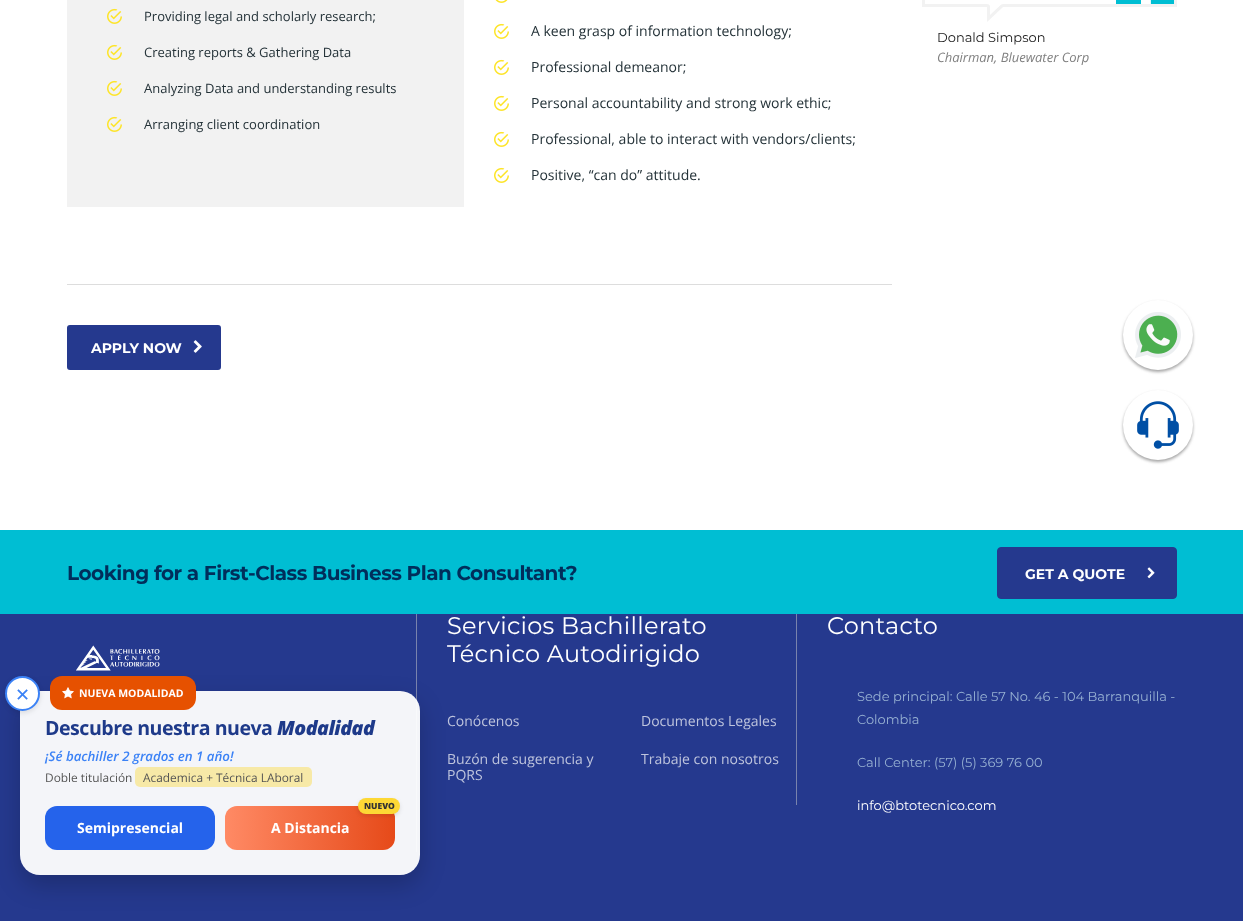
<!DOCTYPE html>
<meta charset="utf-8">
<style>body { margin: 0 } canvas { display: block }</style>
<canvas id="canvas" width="1243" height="921"></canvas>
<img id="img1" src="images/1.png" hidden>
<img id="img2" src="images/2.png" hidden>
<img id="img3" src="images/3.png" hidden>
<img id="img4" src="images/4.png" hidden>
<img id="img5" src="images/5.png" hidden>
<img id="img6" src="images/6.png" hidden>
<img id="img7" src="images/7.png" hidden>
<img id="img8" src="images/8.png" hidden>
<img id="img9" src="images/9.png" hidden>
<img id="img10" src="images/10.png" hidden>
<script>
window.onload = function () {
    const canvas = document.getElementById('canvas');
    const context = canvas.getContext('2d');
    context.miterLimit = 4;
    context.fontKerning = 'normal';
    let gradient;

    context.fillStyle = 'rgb(255, 255, 255)';
    context.fillRect(0, 0, 1243, 921);
    context.fillStyle = 'rgb(242, 242, 242)';
    context.fillRect(67, 0, 397, 207);
    context.drawImage(document.getElementById('img1'), 107, 8, 15, 16);
    context.drawImage(document.getElementById('img1'), 107, 44, 15, 16);
    context.drawImage(document.getElementById('img1'), 107, 80, 15, 16);
    context.drawImage(document.getElementById('img1'), 107, 116, 15, 16);
    context.drawImage(document.getElementById('img2'), 495, 0, 13, 3);
    context.drawImage(document.getElementById('img3'), 494, 23, 15, 16);
    context.drawImage(document.getElementById('img3'), 494, 59, 15, 16);
    context.drawImage(document.getElementById('img3'), 494, 95, 15, 16);
    context.drawImage(document.getElementById('img3'), 494, 131, 15, 16);
    context.drawImage(document.getElementById('img3'), 494, 167, 15, 16);
    context.fillStyle = 'rgb(221, 221, 221)';
    context.fillRect(67, 284, 825, 1);
    context.fillStyle = 'rgb(37, 57, 142)';
    context.beginPath();
    context.roundRect(68.5, 326.5, 151, 42, 1.5);
    context.fill();
    context.strokeStyle = 'rgb(37, 57, 142)';
    context.lineWidth = 3;
    context.stroke();
    context.drawImage(document.getElementById('img4'), 193, 340, 9, 13);
    context.strokeStyle = 'rgb(242, 242, 242)';
    context.strokeRect(923.5, -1.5, 252, 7);
    context.save();
    context.beginPath();
    context.rect(1116, 0, 58, 4);
    context.clip();
    context.fillStyle = 'rgb(0, 190, 211)';
    context.beginPath();
    context.moveTo(1151, 12);
    context.lineTo(1177, 12);
    context.lineTo(1177, -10);
    context.lineTo(1162, -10);
    context.bezierCurveTo(1162, -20, 1167, -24, 1175, -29);
    context.lineTo(1171, -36);
    context.bezierCurveTo(1148, -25, 1151, -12, 1151, 12);
    context.closePath();
    context.moveTo(1116, 12);
    context.lineTo(1141, 12);
    context.lineTo(1141, -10);
    context.lineTo(1126, -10);
    context.bezierCurveTo(1127, -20, 1131, -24, 1140, -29);
    context.lineTo(1136, -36);
    context.bezierCurveTo(1112, -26, 1116, -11, 1116, 12);
    context.closePath();
    context.fill();
    context.restore();
    context.drawImage(document.getElementById('img5'), 987, 4, 16, 18);
    context.fillStyle = 'rgb(0, 190, 211)';
    context.fillRect(0, 530, 1243, 84);
    context.fillStyle = 'rgb(37, 57, 142)';
    context.beginPath();
    context.roundRect(997.5, 547.5, 179, 51, 3.5);
    context.fill();
    context.strokeStyle = 'rgb(37, 57, 142)';
    context.lineWidth = 1;
    context.stroke();
    context.drawImage(document.getElementById('img6'), 1147, 567, 8, 12);
    context.fillRect(0, 614, 1243, 307);
    context.drawImage(document.getElementById('img7'), 76, 645, 84, 26);
    context.fillStyle = 'rgb(121, 131, 173)';
    context.fillRect(416, 614, 1, 238);
    context.fillRect(796, 614, 1, 191);
    context.fillStyle = 'rgb(165, 165, 165)';
    context.filter = 'blur(1.5px)';
    context.beginPath();
    context.roundRect(1123, 302, 70, 70, 35);
    context.fill();
    context.filter = 'none';
    context.fillStyle = 'rgb(255, 255, 255)';
    context.beginPath();
    context.arc(1158, 335, 35, 0, 2 * Math.PI);
    context.fill();
    context.drawImage(document.getElementById('img8'), 1135, 312, 46, 46);
    context.fillStyle = 'rgb(165, 165, 165)';
    context.filter = 'blur(1.5px)';
    context.beginPath();
    context.roundRect(1123, 392, 70, 70, 35);
    context.fill();
    context.filter = 'none';
    context.fillStyle = 'rgb(255, 255, 255)';
    context.beginPath();
    context.arc(1158, 425, 35, 0, 2 * Math.PI);
    context.fill();
    context.drawImage(document.getElementById('img9'), 1137, 401, 42, 48);
    context.save();
    context.beginPath();
    context.moveTo(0, 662);
    context.lineTo(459, 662);
    context.lineTo(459, 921);
    context.lineTo(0, 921);
    context.closePath();
    context.moveTo(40, 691);
    context.lineTo(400, 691);
    context.bezierCurveTo(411, 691, 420, 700, 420, 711);
    context.lineTo(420, 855);
    context.bezierCurveTo(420, 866, 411, 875, 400, 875);
    context.lineTo(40, 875);
    context.bezierCurveTo(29, 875, 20, 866, 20, 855);
    context.lineTo(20, 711);
    context.bezierCurveTo(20, 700, 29, 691, 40, 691);
    context.closePath();
    context.clip('evenodd');
    context.fillStyle = 'rgba(0, 0, 0, 0.2)';
    context.filter = 'blur(12.5px)';
    context.beginPath();
    context.roundRect(20, 701, 400, 184, 20);
    context.fill();
    context.filter = 'none';
    context.restore();
    context.fillStyle = 'rgba(255, 255, 255, 0.95)';
    context.beginPath();
    context.roundRect(20, 691, 400, 184, 20);
    context.fill();
    context.fillStyle = 'rgba(0, 0, 0, 0.1)';
    context.filter = 'blur(2.5px)';
    context.beginPath();
    context.roundRect(5, 678, 35, 35, 17.5);
    context.fill();
    context.filter = 'none';
    context.fillStyle = 'rgb(255, 255, 255)';
    context.beginPath();
    context.arc(22.5, 693.5, 16.5, 0, 2 * Math.PI);
    context.fill();
    context.strokeStyle = 'rgb(59, 130, 246)';
    context.lineWidth = 2;
    context.stroke();
    context.fillStyle = 'rgb(230, 81, 0)';
    context.beginPath();
    context.roundRect(50, 676, 146, 34, 12);
    context.fill();
    context.drawImage(document.getElementById('img10'), 62, 687, 12, 12);
    context.fillStyle = 'rgba(255, 208, 0, 0.33)';
    context.beginPath();
    context.roundRect(135, 767, 177, 20, 5);
    context.fill();
    context.fillStyle = 'rgb(37, 99, 235)';
    context.beginPath();
    context.roundRect(45, 806, 170, 44, 12);
    context.fill();
    gradient = context.createLinearGradient(225, 828, 395, 828);
    gradient.addColorStop(0, 'rgb(255, 138, 101)');
    gradient.addColorStop(1, 'rgb(230, 74, 25)');
    context.fillStyle = gradient;
    context.beginPath();
    context.roundRect(225, 806, 170, 44, 12);
    context.fill();
    context.fillStyle = 'rgba(0, 0, 0, 0.1)';
    context.filter = 'blur(2px)';
    context.beginPath();
    context.roundRect(358, 800, 42, 16, 8);
    context.fill();
    context.filter = 'none';
    context.fillStyle = 'rgb(253, 216, 53)';
    context.beginPath();
    context.roundRect(358, 798, 42, 16, 8);
    context.fill();
    context.font = '13px Open Sans';
    context.fillStyle = 'rgb(36, 50, 56)';
    context.fillText('Providing legal and scholarly research;', 144, 21);
    context.fillText('Creating reports & Gathering Data', 144, 57);
    context.fillText('Analyzing Data and understanding results', 144, 93);
    context.fillText('Arranging client coordination', 144, 129);
    context.font = '14px Open Sans';
    context.fillText('A keen grasp of information technology;', 531, 36);
    context.fillText('Professional demeanor;', 531, 72);
    context.fillText('Personal accountability and strong work ethic;', 531, 108);
    context.fillText('Professional, able to interact with vendors/clients;', 531, 144);
    context.fillText('Positive, “can do” attitude.', 531, 180);
    context.font = 'bold 14px Montserrat';
    context.fillStyle = 'rgb(255, 255, 255)';
    context.fillText('APPLY NOW', 91, 353);
    context.font = '13px Montserrat';
    context.fillStyle = 'rgb(34, 34, 34)';
    context.fillText('Donald Simpson', 937, 42);
    context.font = 'italic 13px Open Sans';
    context.fillStyle = 'rgb(128, 128, 128)';
    context.fillText('Chairman, Bluewater Corp', 937, 62);
    context.letterSpacing = '-0.5px';
    context.font = 'bold 20px Montserrat';
    context.fillStyle = 'rgb(0, 46, 91)';
    context.fillText('Looking for a First-Class Business Plan Consultant?', 67, 580);
    context.letterSpacing = '0px';
    context.font = 'bold 14px Montserrat';
    context.fillStyle = 'rgb(255, 255, 255)';
    context.fillText('GET A QUOTE', 1025, 579);
    context.letterSpacing = '0.25px';
    context.font = '24px Montserrat';
    context.fillText('Servicios Bachillerato', 447, 634);
    context.fillText('Técnico Autodirigido', 447, 662);
    context.letterSpacing = '0px';
    context.font = '14px Open Sans';
    context.fillStyle = 'rgb(190, 196, 221)';
    context.fillText('Conócenos', 447, 726);
    context.fillText('Documentos Legales', 641, 726);
    context.fillText('Buzón de sugerencia y', 447, 764);
    context.fillText('PQRS', 447, 780);
    context.fillText('Trabaje con nosotros', 641, 764);
    context.letterSpacing = '0.25px';
    context.font = '24px Montserrat';
    context.fillStyle = 'rgb(255, 255, 255)';
    context.fillText('Contacto', 827, 634);
    context.letterSpacing = '0px';
    context.font = '13px Montserrat';
    context.fillStyle = 'rgb(150, 176, 210)';
    context.fillText('Sede principal: Calle 57 No. 46 - 104 Barranquilla -', 857, 701);
    context.fillText('Colombia', 857, 724);
    context.fillText('Call Center: (57) (5) 369 76 00', 857, 767);
    context.fillStyle = 'rgb(255, 255, 255)';
    context.fillText('info@btotecnico.com', 857, 810);
    context.font = '18px DejaVu Sans';
    context.fillStyle = 'rgb(59, 130, 246)';
    context.fillText('✕', 15, 701);
    context.font = 'bold 10.5px Open Sans';
    context.fillStyle = 'rgb(255, 255, 255)';
    context.fillText('NUEVA MODALIDAD', 79, 697);
    context.letterSpacing = '-0.5px';
    context.font = 'bold 19.6px Open Sans';
    context.fillStyle = 'rgb(30, 58, 138)';
    context.fillText('Descubre nuestra nueva', 45, 735);
    context.font = 'italic 800 19.6px Open Sans';
    context.fillText('Modalidad', 277, 735);
    context.letterSpacing = '0px';
    context.font = 'italic 600 13.25px Open Sans';
    context.fillStyle = 'rgb(59, 130, 246)';
    context.fillText('¡Sé bachiller 2 grados en 1 año!', 45, 761);
    context.font = '11.9px Open Sans';
    context.fillStyle = 'rgb(85, 85, 85)';
    context.fillText('Doble titulación', 45, 782);
    context.fillText('Academica + Técnica LAboral', 143, 782);
    context.font = 'bold 14px Open Sans';
    context.fillStyle = 'rgb(255, 255, 255)';
    context.fillText('Semipresencial', 77, 833);
    context.font = '800 8.5px Open Sans';
    context.fillStyle = 'rgb(51, 51, 51)';
    context.fillText('NUEVO', 364, 809);
    context.font = 'bold 14px Open Sans';
    context.fillStyle = 'rgb(255, 255, 255)';
    context.fillText('A Distancia', 271, 833);
};
</script>
